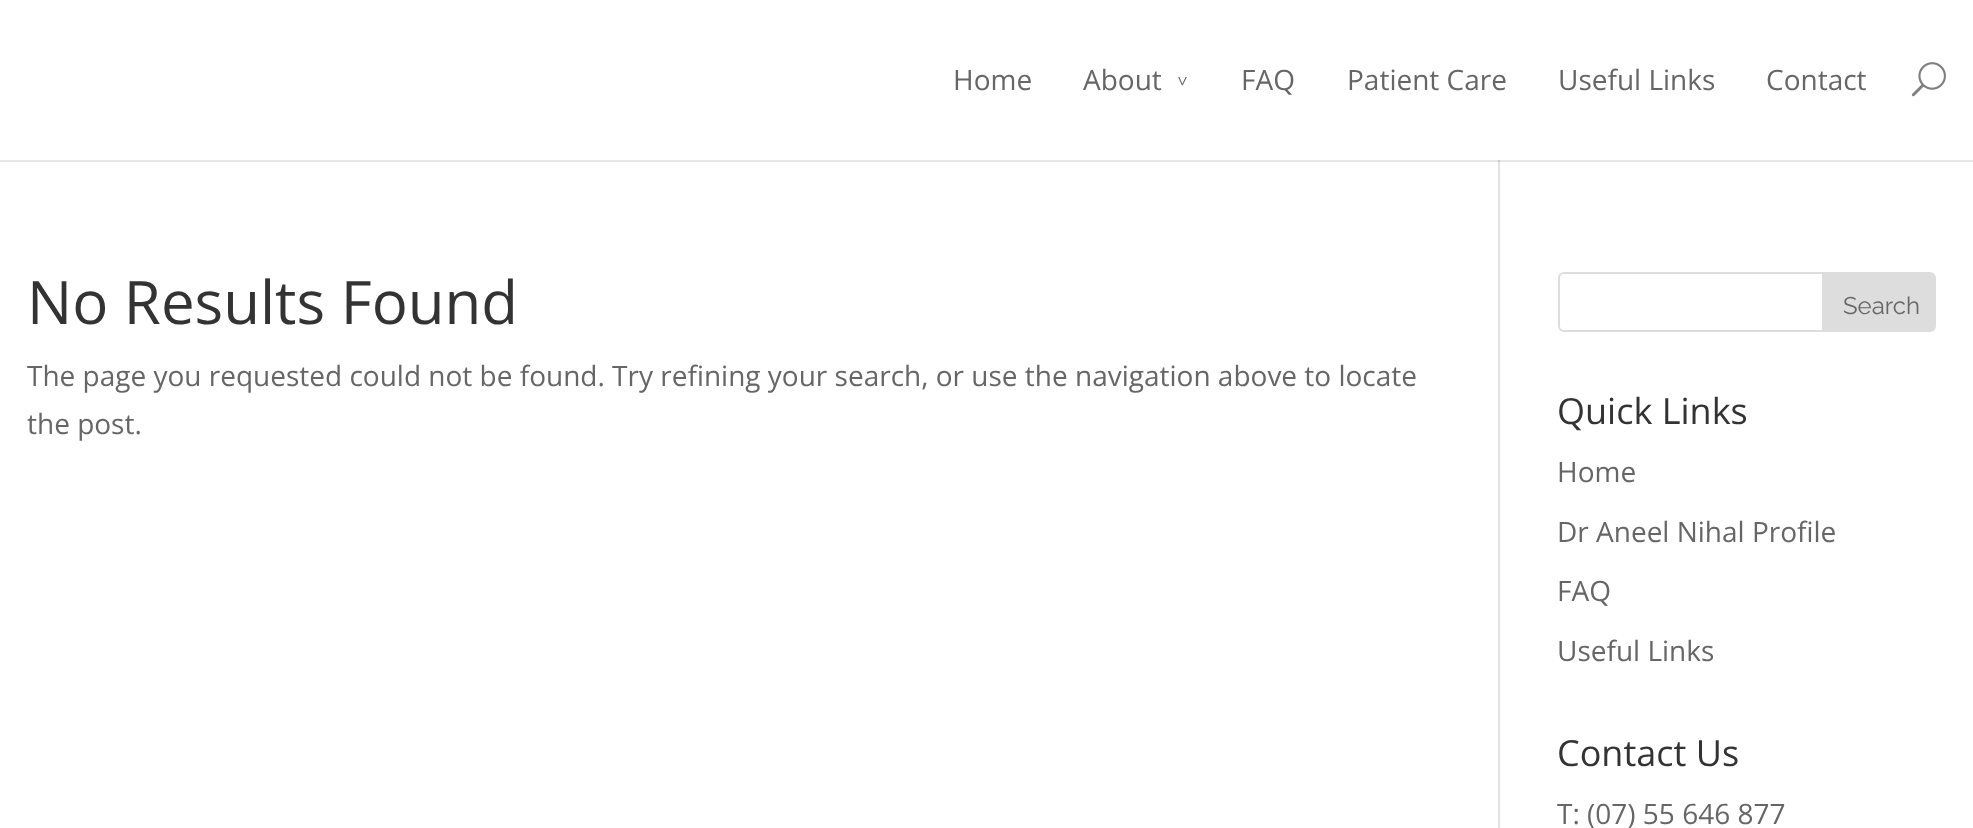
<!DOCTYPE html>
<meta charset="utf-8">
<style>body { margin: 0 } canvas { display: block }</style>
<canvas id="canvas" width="1973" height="828"></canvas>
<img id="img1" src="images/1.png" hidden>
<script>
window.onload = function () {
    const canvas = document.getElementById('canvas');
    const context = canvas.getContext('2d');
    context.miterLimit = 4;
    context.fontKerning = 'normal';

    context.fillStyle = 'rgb(255, 255, 255)';
    context.fillRect(0, 0, 1973, 828);
    context.fillStyle = 'rgb(230, 230, 230)';
    context.fillRect(0, 160, 1973, 2);
    context.fillStyle = 'rgb(226, 226, 226)';
    context.fillRect(1498, 156, 2, 672);
    context.fillStyle = 'rgb(255, 255, 255)';
    context.fillRect(1498, 156, 2, 4);
    context.drawImage(document.getElementById('img1'), 1911, 62, 35, 35);
    context.fillStyle = 'rgb(203, 203, 203)';
    context.fillRect(1498, 160, 2, 2);
    context.beginPath();
    context.roundRect(1559, 273, 272, 58, [5, 0, 0, 5]);
    context.strokeStyle = 'rgb(221, 221, 221)';
    context.lineWidth = 2;
    context.stroke();
    context.fillStyle = 'rgb(221, 221, 221)';
    context.beginPath();
    context.roundRect(1822, 272, 114, 60, [0, 6, 6, 0]);
    context.fill();
    context.font = '28px Open Sans';
    context.fillStyle = 'rgb(102, 102, 102)';
    context.fillText('Home', 953, 90);
    context.fillText('About', 1083, 90);
    context.font = '18px Open Sans';
    context.save();
    context.translate(1176, 76);
    context.rotate(90 * Math.PI / 180);
    context.fillText('>', 0, 0);
    context.restore();
    context.font = '28px Open Sans';
    context.fillText('FAQ', 1241, 90);
    context.fillText('Patient Care', 1347, 90);
    context.fillText('Useful Links', 1558, 90);
    context.fillText('Contact', 1766, 90);
    context.font = '60px Open Sans';
    context.fillStyle = 'rgb(51, 51, 51)';
    context.fillText('No Results Found', 27, 324);
    context.font = '28px Open Sans';
    context.fillStyle = 'rgb(102, 102, 102)';
    context.fillText('The page you requested could not be found. Try refining your search, or use the navigation above to locate', 27, 386);
    context.fillText('the post.', 27, 434);
    context.font = '24px Raleway';
    context.fillText('Search', 1843, 314);
    context.font = '36px Open Sans';
    context.fillStyle = 'rgb(51, 51, 51)';
    context.fillText('Quick Links', 1557, 424);
    context.font = '28px Open Sans';
    context.fillStyle = 'rgb(102, 102, 102)';
    context.fillText('Home', 1557, 482);
    context.fillText('Dr Aneel Nihal Profile', 1557, 542);
    context.fillText('FAQ', 1557, 601);
    context.fillText('Useful Links', 1557, 661);
    context.font = '36px Open Sans';
    context.fillStyle = 'rgb(51, 51, 51)';
    context.fillText('Contact Us', 1557, 766);
    context.font = '28px Open Sans';
    context.fillStyle = 'rgb(102, 102, 102)';
    context.fillText('T: (07) 55 646 877', 1557, 824);
};
</script>
